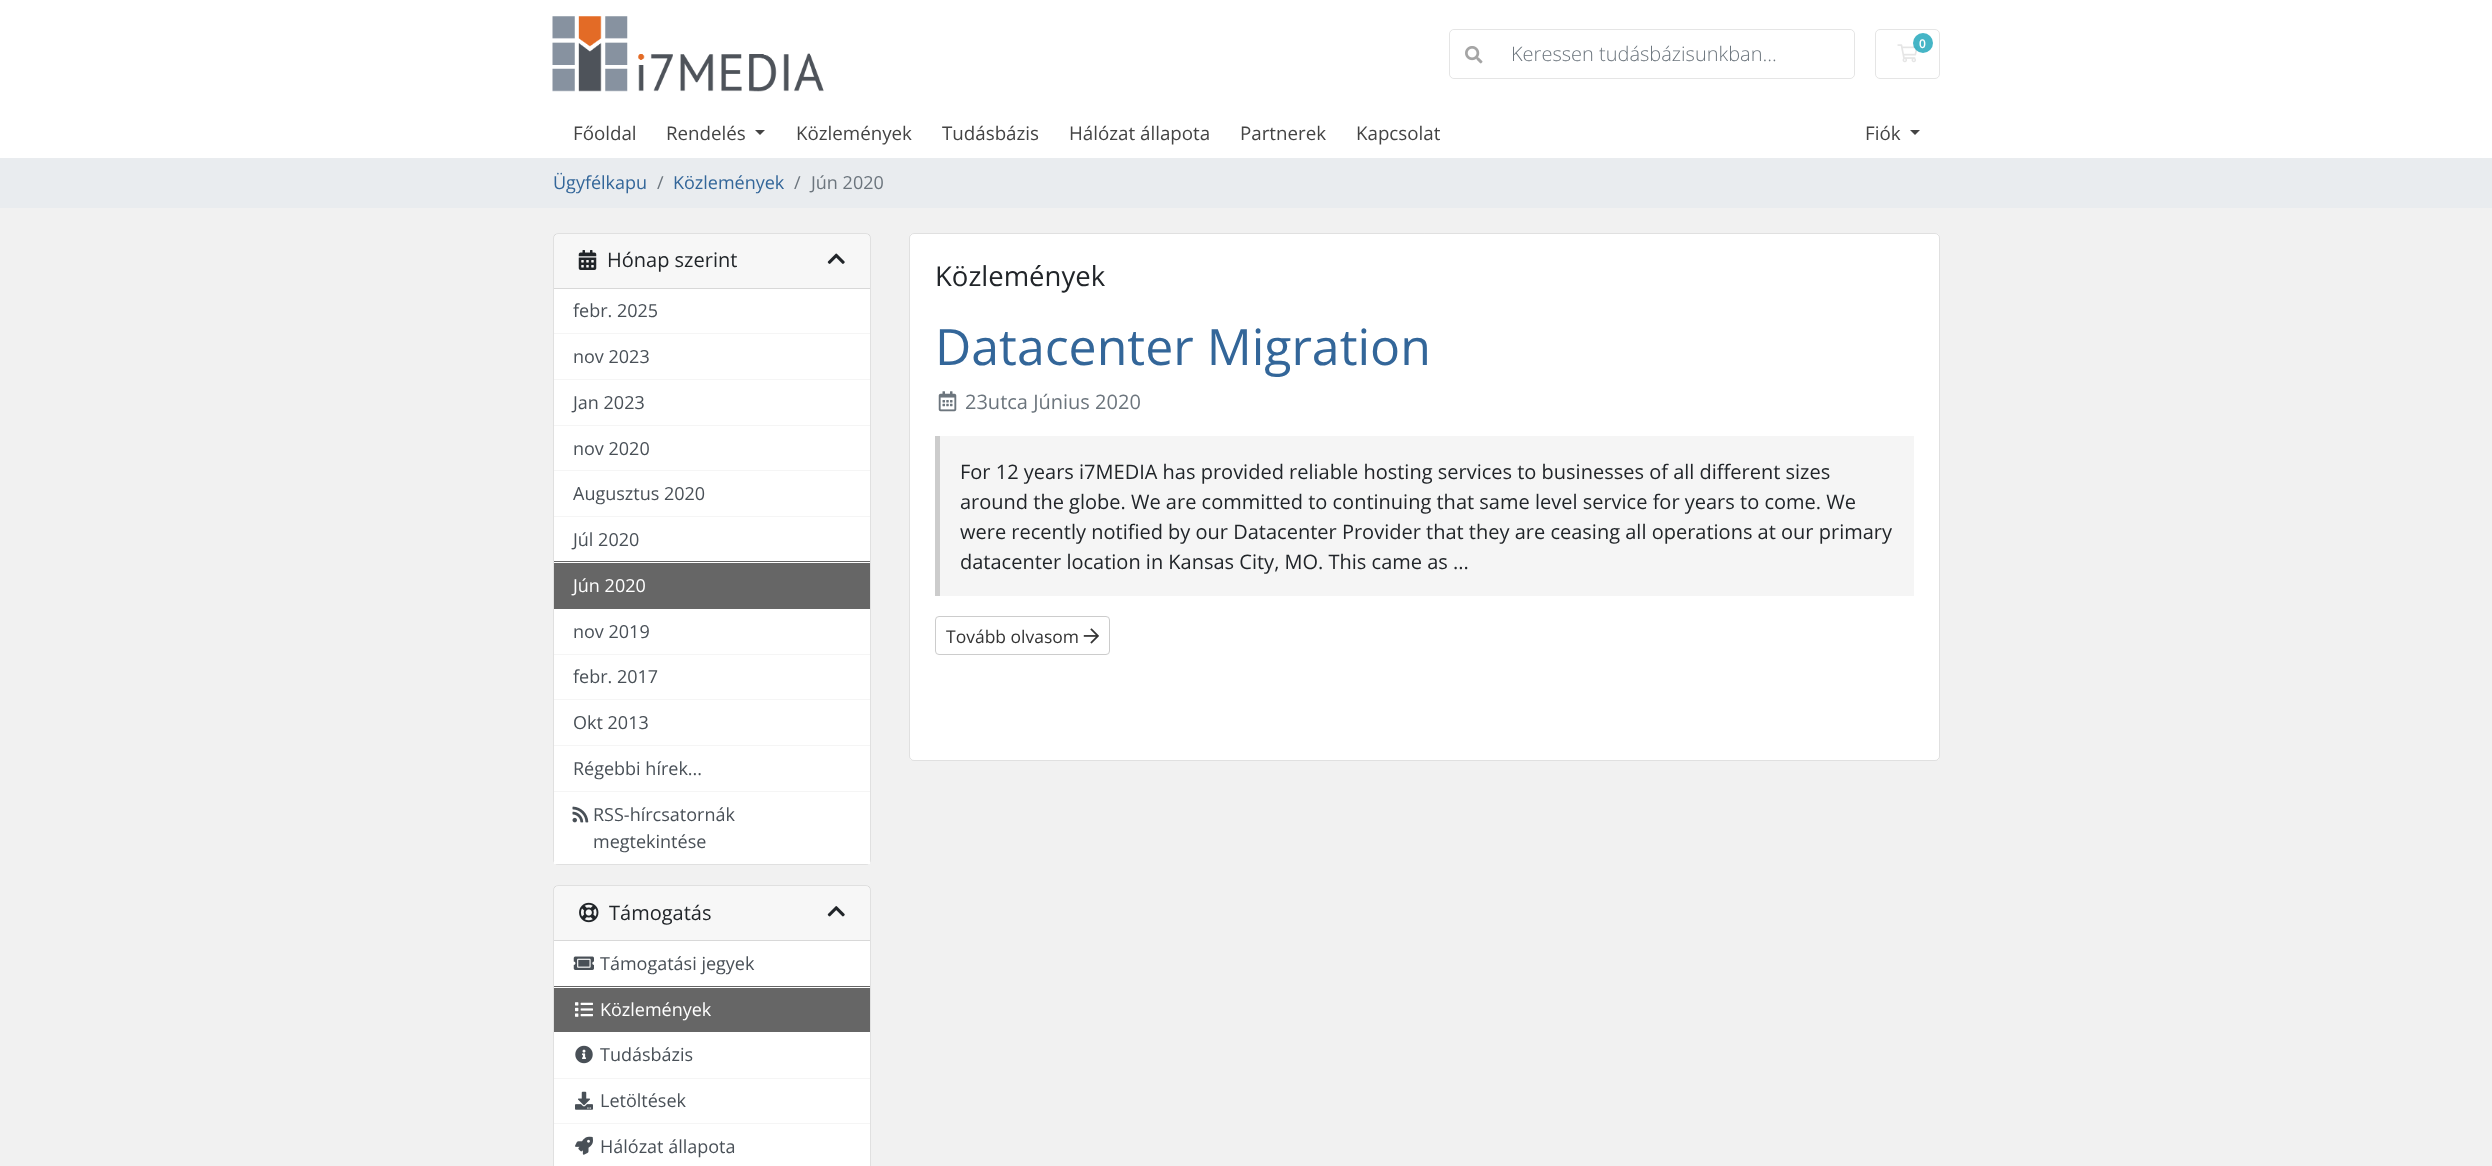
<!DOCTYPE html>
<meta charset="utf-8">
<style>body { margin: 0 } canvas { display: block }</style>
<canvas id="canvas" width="2492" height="1166"></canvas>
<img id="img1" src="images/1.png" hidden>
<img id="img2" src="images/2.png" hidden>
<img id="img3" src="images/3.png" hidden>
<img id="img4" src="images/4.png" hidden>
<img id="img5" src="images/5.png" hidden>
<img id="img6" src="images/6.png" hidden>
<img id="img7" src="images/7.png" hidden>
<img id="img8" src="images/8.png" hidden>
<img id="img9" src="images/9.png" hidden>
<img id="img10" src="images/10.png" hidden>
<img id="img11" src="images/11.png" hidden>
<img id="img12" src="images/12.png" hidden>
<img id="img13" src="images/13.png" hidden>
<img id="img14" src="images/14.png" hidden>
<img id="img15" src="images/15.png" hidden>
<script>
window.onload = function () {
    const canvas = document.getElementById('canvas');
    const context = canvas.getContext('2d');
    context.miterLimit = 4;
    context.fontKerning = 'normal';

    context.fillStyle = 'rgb(241, 241, 241)';
    context.fillRect(0, 0, 2492, 1166);
    context.fillStyle = 'rgb(255, 255, 255)';
    context.fillRect(0, 0, 2492, 158);
    context.drawImage(document.getElementById('img1'), 552, 16, 272, 76);
    context.beginPath();
    context.roundRect(1875.5, 29.5, 64, 49, 4.5);
    context.strokeStyle = 'rgb(229, 229, 229)';
    context.stroke();
    context.drawImage(document.getElementById('img2'), 1897, 44, 21, 19);
    context.fillStyle = 'rgba(23, 162, 184, 0.8)';
    context.beginPath();
    context.arc(1923, 43, 10, 0, 2 * Math.PI);
    context.fill();
    context.beginPath();
    context.roundRect(1449.5, 29.5, 405, 49, 4.5);
    context.stroke();
    context.fillStyle = 'rgb(255, 255, 255)';
    context.beginPath();
    context.roundRect(1496, 30, 358, 48, [0, 5, 5, 0]);
    context.fill();
    context.beginPath();
    context.roundRect(1450, 30, 48, 48, [5, 0, 0, 5]);
    context.fill();
    context.drawImage(document.getElementById('img3'), 1465, 46, 18, 18);
    context.fillStyle = 'rgb(68, 68, 68)';
    context.beginPath();
    context.moveTo(755, 130);
    context.lineTo(765, 130);
    context.lineTo(760, 135);
    context.closePath();
    context.fill();
    context.beginPath();
    context.moveTo(1910, 130);
    context.lineTo(1920, 130);
    context.lineTo(1915, 135);
    context.closePath();
    context.fill();
    context.fillStyle = 'rgb(233, 236, 239)';
    context.fillRect(0, 158, 2492, 50);
    context.fillStyle = 'rgb(255, 255, 255)';
    context.beginPath();
    context.roundRect(553, 233, 318, 632, 5);
    context.fill();
    context.beginPath();
    context.roundRect(553.5, 233.5, 317, 631, 4.5);
    context.strokeStyle = 'rgba(0, 0, 0, 0.12)';
    context.stroke();
    context.fillStyle = 'rgba(0, 0, 0, 0.03)';
    context.fillRect(554, 234, 316, 54);
    context.fillStyle = 'rgb(216, 216, 216)';
    context.fillRect(554, 288, 316, 1);
    context.drawImage(document.getElementById('img4'), 578, 250, 19, 20);
    context.drawImage(document.getElementById('img5'), 827, 253, 18, 11);
    context.fillStyle = 'rgb(245, 245, 245)';
    context.fillRect(554, 333, 316, 1);
    context.fillRect(554, 379, 316, 1);
    context.fillRect(554, 425, 316, 1);
    context.fillRect(554, 470, 316, 1);
    context.fillRect(554, 516, 316, 1);
    context.fillStyle = 'rgb(102, 102, 102)';
    context.fillRect(554, 563, 316, 46);
    context.fillRect(554, 561, 316, 1);
    context.fillStyle = 'rgb(245, 245, 245)';
    context.fillRect(554, 654, 316, 1);
    context.fillRect(554, 699, 316, 1);
    context.fillRect(554, 745, 316, 1);
    context.fillRect(554, 791, 316, 1);
    context.fillStyle = 'rgb(255, 255, 255)';
    context.fillRect(554, 861, 316, 3);
    context.drawImage(document.getElementById('img6'), 572, 806, 17, 17);
    context.beginPath();
    context.roundRect(553, 885, 318, 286, 5);
    context.fill();
    context.beginPath();
    context.roundRect(553.5, 885.5, 317, 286, 4.5);
    context.stroke();
    context.fillStyle = 'rgba(0, 0, 0, 0.03)';
    context.fillRect(554, 886, 316, 54);
    context.fillStyle = 'rgb(216, 216, 216)';
    context.fillRect(554, 940, 316, 1);
    context.drawImage(document.getElementById('img7'), 579, 902, 20, 21);
    context.drawImage(document.getElementById('img8'), 827, 906, 18, 11);
    context.drawImage(document.getElementById('img9'), 573, 956, 21, 14);
    context.fillStyle = 'rgb(102, 102, 102)';
    context.fillRect(554, 988, 316, 44);
    context.fillRect(554, 986, 316, 1);
    context.drawImage(document.getElementById('img10'), 575, 1002, 18, 15);
    context.fillStyle = 'rgb(245, 245, 245)';
    context.fillRect(554, 1078, 316, 1);
    context.drawImage(document.getElementById('img11'), 575, 1045, 18, 19);
    context.fillRect(554, 1123, 316, 1);
    context.drawImage(document.getElementById('img12'), 575, 1091, 18, 19);
    context.drawImage(document.getElementById('img13'), 575, 1136, 18, 19);
    context.fillStyle = 'rgb(255, 255, 255)';
    context.beginPath();
    context.roundRect(909, 233, 1031, 528, 5);
    context.fill();
    context.beginPath();
    context.roundRect(909.5, 233.5, 1030, 527, 4.5);
    context.stroke();
    context.drawImage(document.getElementById('img14'), 938, 391, 19, 21);
    context.fillStyle = 'rgb(245, 245, 245)';
    context.fillRect(940, 436, 974, 160);
    context.fillStyle = 'rgb(204, 204, 204)';
    context.fillRect(935, 436, 5, 160);
    context.beginPath();
    context.roundRect(935.5, 616.5, 174, 38, 3.5);
    context.strokeStyle = 'rgb(204, 204, 204)';
    context.stroke();
    context.drawImage(document.getElementById('img15'), 1083, 628, 16, 16);
    context.font = '600 12px Open Sans';
    context.fillStyle = 'rgb(255, 255, 255)';
    context.fillText('0', 1919, 48);
    context.font = '300 20px Open Sans';
    context.fillStyle = 'rgb(108, 117, 125)';
    context.fillText('Keressen tudásbázisunkban...', 1511, 61);
    context.font = '18.75px Open Sans';
    context.fillStyle = 'rgb(68, 68, 68)';
    context.fillText('Főoldal', 573, 140);
    context.fillText('Rendelés', 666, 140);
    context.fillText('Közlemények', 796, 140);
    context.fillText('Tudásbázis', 942, 140);
    context.fillText('Hálózat állapota', 1069, 140);
    context.fillText('Partnerek', 1240, 140);
    context.fillText('Kapcsolat', 1356, 140);
    context.fillText('Fiók', 1865, 140);
    context.font = '18px Open Sans';
    context.fillStyle = 'rgb(51, 102, 153)';
    context.fillText('Ügyfélkapu', 553, 189);
    context.fillStyle = 'rgb(108, 117, 125)';
    context.fillText('/', 657, 189);
    context.fillStyle = 'rgb(51, 102, 153)';
    context.fillText('Közlemények', 673, 189);
    context.fillStyle = 'rgb(108, 117, 125)';
    context.fillText('/', 794, 189);
    context.fillText('Jún 2020', 811, 189);
    context.font = '20px Open Sans';
    context.fillStyle = 'rgb(33, 37, 41)';
    context.fillText('Hónap szerint', 607, 267);
    context.font = '18px Open Sans';
    context.fillStyle = 'rgb(73, 80, 87)';
    context.fillText('febr. 2025', 573, 317);
    context.fillText('nov 2023', 573, 363);
    context.fillText('Jan 2023', 573, 409);
    context.fillText('nov 2020', 573, 455);
    context.fillText('Augusztus 2020', 573, 500);
    context.fillText('Júl 2020', 573, 546);
    context.fillStyle = 'rgb(255, 255, 255)';
    context.fillText('Jún 2020', 573, 592);
    context.fillStyle = 'rgb(73, 80, 87)';
    context.fillText('nov 2019', 573, 638);
    context.fillText('febr. 2017', 573, 683);
    context.fillText('Okt 2013', 573, 729);
    context.fillText('Régebbi hírek...', 573, 775);
    context.fillText('RSS-hírcsatornák', 593, 821);
    context.fillText('megtekintése', 593, 848);
    context.font = '20px Open Sans';
    context.fillStyle = 'rgb(33, 37, 41)';
    context.fillText('Támogatás', 609, 920);
    context.font = '18px Open Sans';
    context.fillStyle = 'rgb(73, 80, 87)';
    context.fillText('Támogatási jegyek', 600, 970);
    context.fillStyle = 'rgb(255, 255, 255)';
    context.fillText('Közlemények', 600, 1016);
    context.fillStyle = 'rgb(73, 80, 87)';
    context.fillText('Tudásbázis', 600, 1061);
    context.fillText('Letöltések', 600, 1107);
    context.fillText('Hálózat állapota', 600, 1153);
    context.font = '27.5px Open Sans';
    context.fillStyle = 'rgb(33, 37, 41)';
    context.fillText('Közlemények', 935, 286);
    context.font = '50px Open Sans';
    context.fillStyle = 'rgb(51, 102, 153)';
    context.fillText('Datacenter Migration', 935, 365);
    context.font = '20px Open Sans';
    context.fillStyle = 'rgb(108, 117, 125)';
    context.fillText('23utca Június 2020', 965, 409);
    context.fillStyle = 'rgb(33, 37, 41)';
    context.fillText('For 12 years i7MEDIA has provided reliable hosting services to businesses of all different sizes', 960, 479);
    context.fillText('around the globe. We are committed to continuing that same level service for years to come. We', 960, 509);
    context.fillText('were recently notified by our Datacenter Provider that they are ceasing all operations at our primary', 960, 539);
    context.fillText('datacenter location in Kansas City, MO. This came as ...', 960, 569);
    context.font = '17.5px Open Sans';
    context.fillStyle = 'rgb(51, 51, 51)';
    context.fillText('Tovább olvasom', 946, 643);
};
</script>
